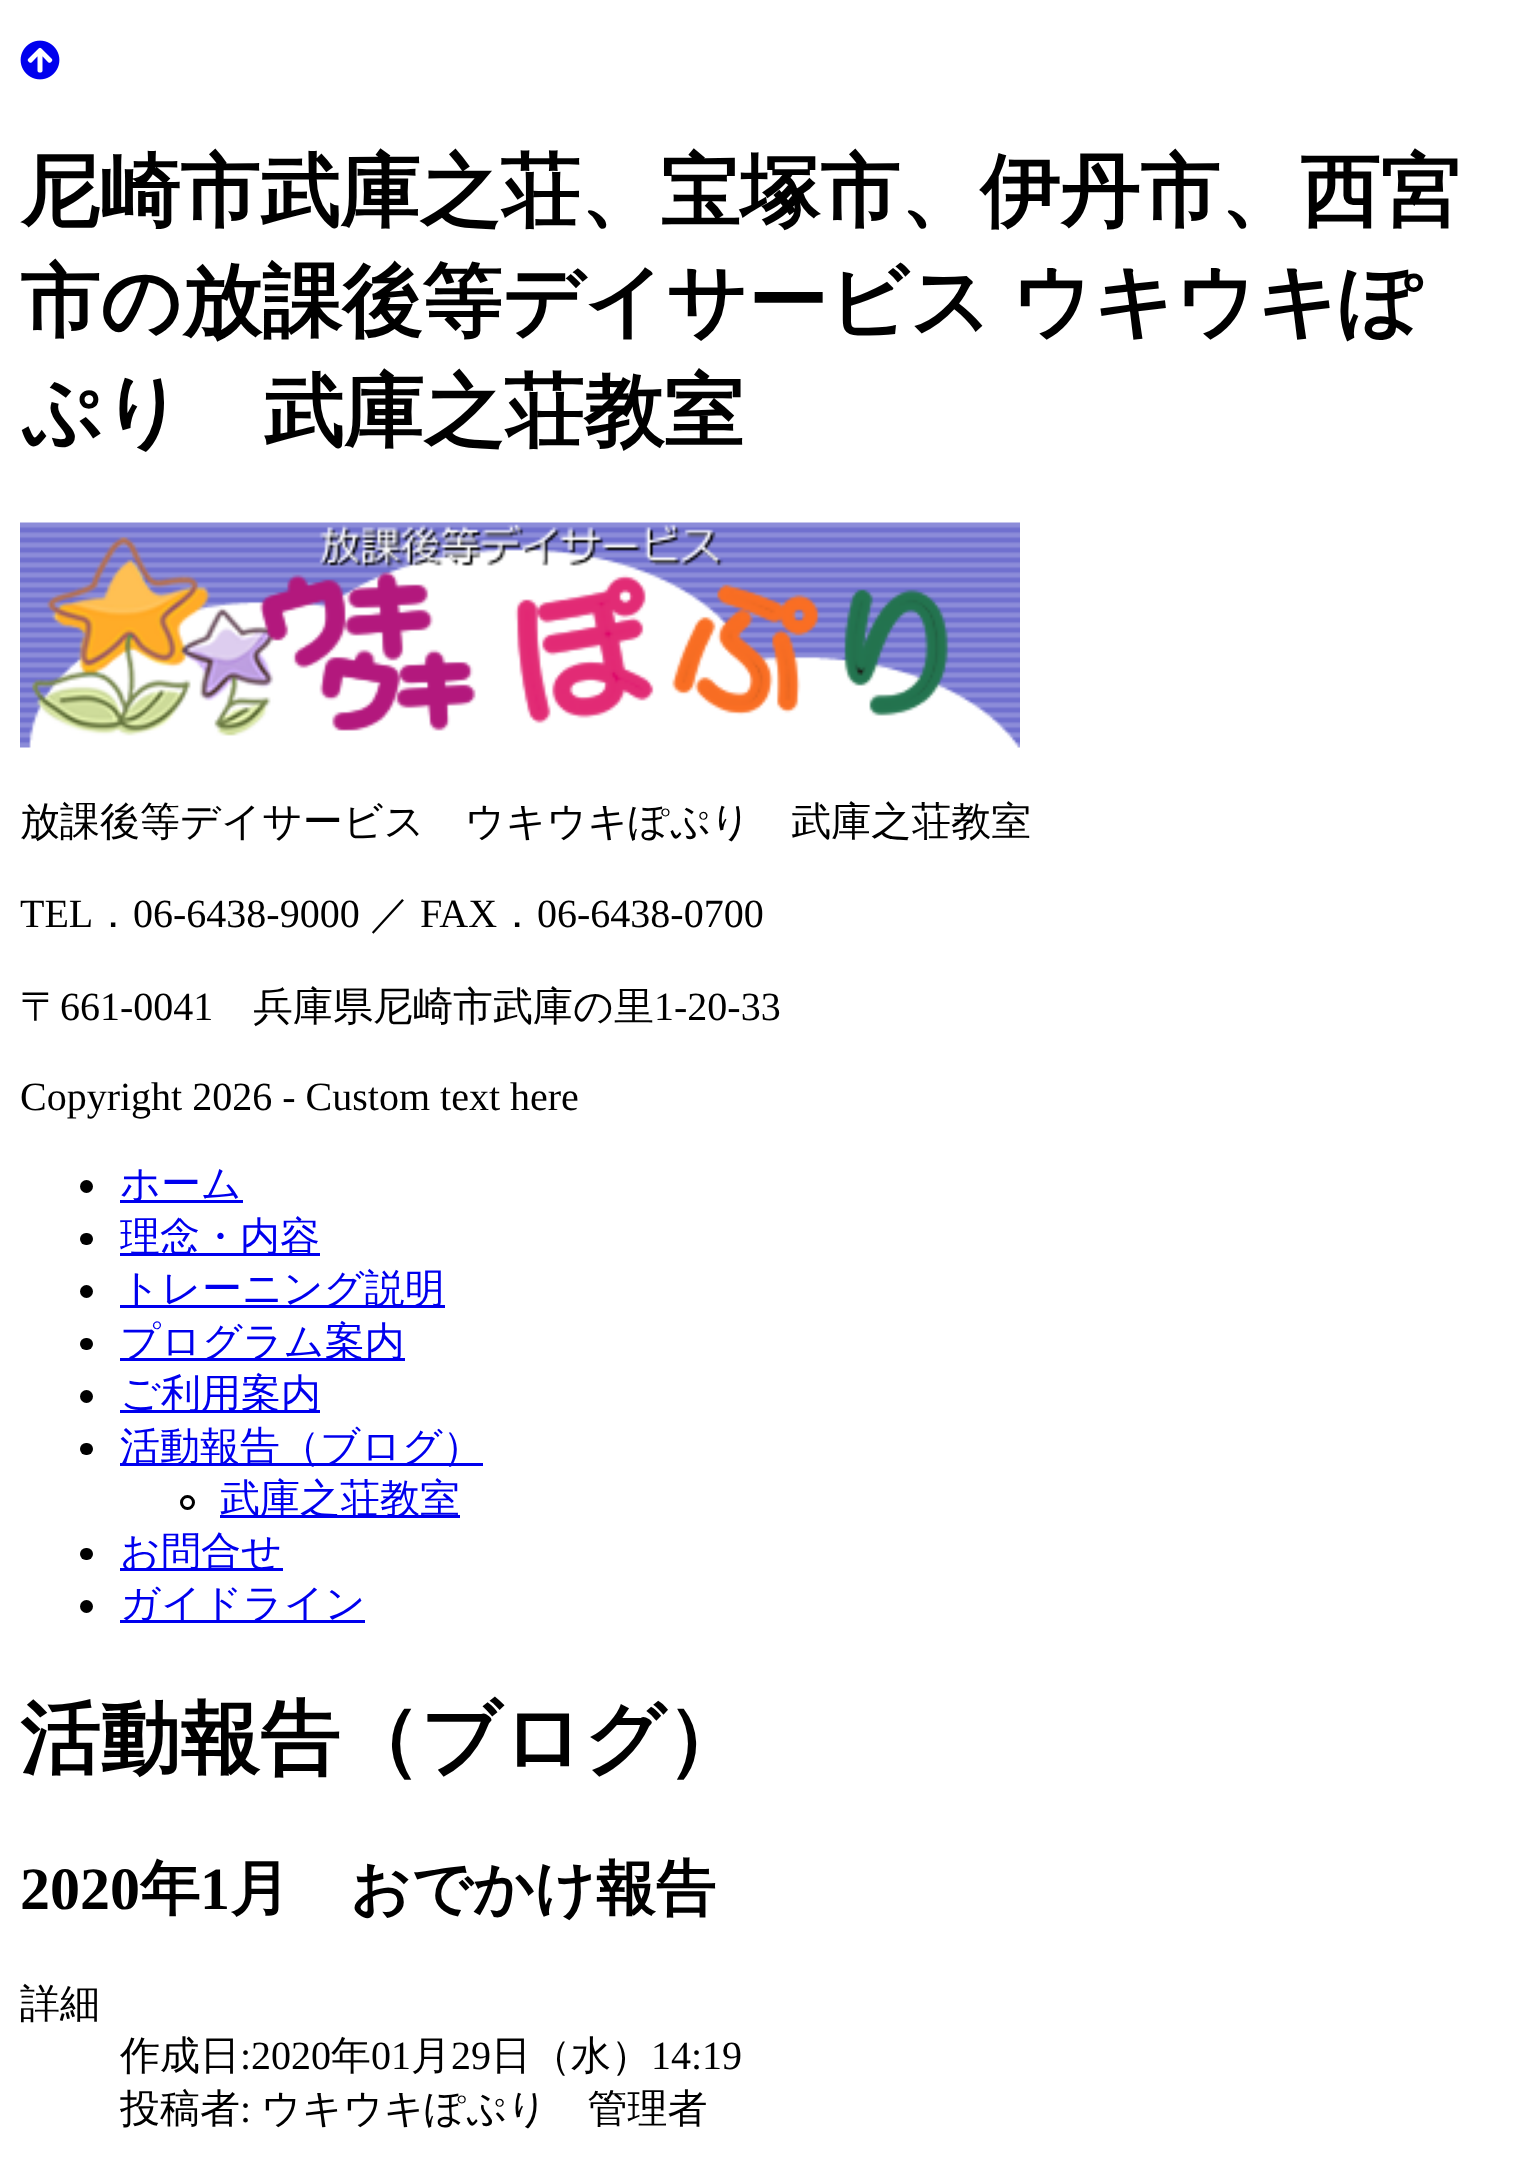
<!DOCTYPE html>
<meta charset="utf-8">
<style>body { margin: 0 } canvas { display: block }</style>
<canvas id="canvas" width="1513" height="2172"></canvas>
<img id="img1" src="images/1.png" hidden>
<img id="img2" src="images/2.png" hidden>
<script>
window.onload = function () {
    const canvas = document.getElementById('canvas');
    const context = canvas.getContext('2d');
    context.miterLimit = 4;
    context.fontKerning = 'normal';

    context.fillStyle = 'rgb(255, 255, 255)';
    context.fillRect(0, 0, 1513, 2172);
    context.drawImage(document.getElementById('img1'), 20, 40, 40, 40);
    context.drawImage(document.getElementById('img2'), 20, 522, 1000, 226);
    context.fillStyle = 'rgb(0, 0, 0)';
    context.beginPath();
    context.arc(86.5, 1186.5, 6.5, 0, 2 * Math.PI);
    context.fill();
    context.fillStyle = 'rgb(0, 0, 238)';
    context.fillRect(120, 1200, 123, 3);
    context.fillStyle = 'rgb(0, 0, 0)';
    context.beginPath();
    context.roundRect(80, 1233, 13, 12, 6);
    context.fill();
    context.fillStyle = 'rgb(0, 0, 238)';
    context.fillRect(120, 1253, 200, 3);
    context.fillStyle = 'rgb(0, 0, 0)';
    context.beginPath();
    context.arc(86.5, 1291.5, 6.5, 0, 2 * Math.PI);
    context.fill();
    context.fillStyle = 'rgb(0, 0, 238)';
    context.fillRect(120, 1305, 325, 3);
    context.fillStyle = 'rgb(0, 0, 0)';
    context.beginPath();
    context.roundRect(80, 1338, 13, 12, 6);
    context.fill();
    context.fillStyle = 'rgb(0, 0, 238)';
    context.fillRect(120, 1358, 285, 3);
    context.fillStyle = 'rgb(0, 0, 0)';
    context.beginPath();
    context.arc(86.5, 1396.5, 6.5, 0, 2 * Math.PI);
    context.fill();
    context.fillStyle = 'rgb(0, 0, 238)';
    context.fillRect(120, 1410, 200, 3);
    context.fillStyle = 'rgb(0, 0, 0)';
    context.beginPath();
    context.roundRect(80, 1443, 13, 12, 6);
    context.fill();
    context.fillStyle = 'rgb(0, 0, 238)';
    context.fillRect(120, 1463, 363, 3);
    context.beginPath();
    context.arc(187.5, 1502.5, 6, 0, 2 * Math.PI);
    context.strokeStyle = 'rgb(0, 0, 0)';
    context.lineWidth = 3;
    context.stroke();
    context.fillRect(220, 1515, 240, 3);
    context.fillStyle = 'rgb(0, 0, 0)';
    context.beginPath();
    context.roundRect(80, 1548, 13, 12, 6);
    context.fill();
    context.fillStyle = 'rgb(0, 0, 238)';
    context.fillRect(120, 1568, 163, 3);
    context.fillStyle = 'rgb(0, 0, 0)';
    context.beginPath();
    context.arc(86.5, 1606.5, 6.5, 0, 2 * Math.PI);
    context.fill();
    context.fillStyle = 'rgb(0, 0, 238)';
    context.fillRect(120, 1620, 245, 3);
    context.font = 'bold 80px WenQuanYi Zen Hei';
    context.fillStyle = 'rgb(0, 0, 0)';
    context.fillText('尼崎市武庫之荘、宝塚市、伊丹市、西宮', 20, 219);
    context.wordSpacing = '-4px';
    context.fillText('市の放課後等デイサービス ウキウキぽ', 20, 329);
    context.wordSpacing = '0px';
    context.fillText('ぷり　武庫之荘教室', 20, 439);
    context.font = '500 40px WenQuanYi Zen Hei';
    context.fillText('放課後等デイサービス　ウキウキぽぷり　武庫之荘教室', 20, 835);
    context.font = '40px Liberation Serif';
    context.fillText('TEL', 20, 927);
    context.font = '500 40px WenQuanYi Zen Hei';
    context.fillText('．', 93, 927);
    context.font = '40px Liberation Serif';
    context.fillText('06-6438-9000', 133, 927);
    context.font = '500 40px WenQuanYi Zen Hei';
    context.fillText('／', 370, 927);
    context.font = '40px Liberation Serif';
    context.fillText('FAX', 420, 927);
    context.font = '500 40px WenQuanYi Zen Hei';
    context.fillText('．', 497, 927);
    context.font = '40px Liberation Serif';
    context.fillText('06-6438-0700', 537, 927);
    context.font = '500 40px WenQuanYi Zen Hei';
    context.fillText('〒', 20, 1020);
    context.font = '40px Liberation Serif';
    context.fillText('661-0041', 60, 1020);
    context.font = '500 40px WenQuanYi Zen Hei';
    context.fillText('兵庫県尼崎市武庫の里', 253, 1020);
    context.font = '40px Liberation Serif';
    context.fillText('1-20-33', 654, 1020);
    context.fillText('Copyright 2026 - Custom text here', 20, 1110);
    context.font = '500 40px WenQuanYi Zen Hei';
    context.fillStyle = 'rgb(0, 0, 238)';
    context.fillText('ホーム', 120, 1197);
    context.fillText('理念・内容', 120, 1250);
    context.fillText('トレーニング説明', 120, 1302);
    context.fillText('プログラム案内', 120, 1355);
    context.fillText('ご利用案内', 120, 1407);
    context.fillText('活動報告（ブログ）', 120, 1460);
    context.fillText('武庫之荘教室', 220, 1512);
    context.fillText('お問合せ', 120, 1565);
    context.fillText('ガイドライン', 120, 1617);
    context.font = 'bold 80px WenQuanYi Zen Hei';
    context.fillStyle = 'rgb(0, 0, 0)';
    context.fillText('活動報告（ブログ）', 20, 1766);
    context.font = 'bold 60px Liberation Serif';
    context.fillText('2020', 20, 1909);
    context.font = 'bold 60px WenQuanYi Zen Hei';
    context.fillText('年', 140, 1909);
    context.font = 'bold 60px Liberation Serif';
    context.fillText('1', 200, 1909);
    context.font = 'bold 60px WenQuanYi Zen Hei';
    context.fillText('月　おでかけ報告', 230, 1909);
    context.font = '500 40px WenQuanYi Zen Hei';
    context.fillText('詳細', 20, 2017);
    context.fillText('作成日', 120, 2069);
    context.font = '40px Liberation Serif';
    context.fillText(':2020', 240, 2069);
    context.font = '500 40px WenQuanYi Zen Hei';
    context.fillText('年', 331, 2069);
    context.font = '40px Liberation Serif';
    context.fillText('01', 371, 2069);
    context.font = '500 40px WenQuanYi Zen Hei';
    context.fillText('月', 411, 2069);
    context.font = '40px Liberation Serif';
    context.fillText('29', 451, 2069);
    context.font = '500 40px WenQuanYi Zen Hei';
    context.fillText('日（水）', 491, 2069);
    context.font = '40px Liberation Serif';
    context.fillText('14:19', 651, 2069);
    context.font = '500 40px WenQuanYi Zen Hei';
    context.fillText('投稿者', 120, 2122);
    context.font = '40px Liberation Serif';
    context.fillText(':', 240, 2122);
    context.font = '500 40px WenQuanYi Zen Hei';
    context.fillText('ウキウキぽぷり　管理者', 261, 2122);
};
</script>
